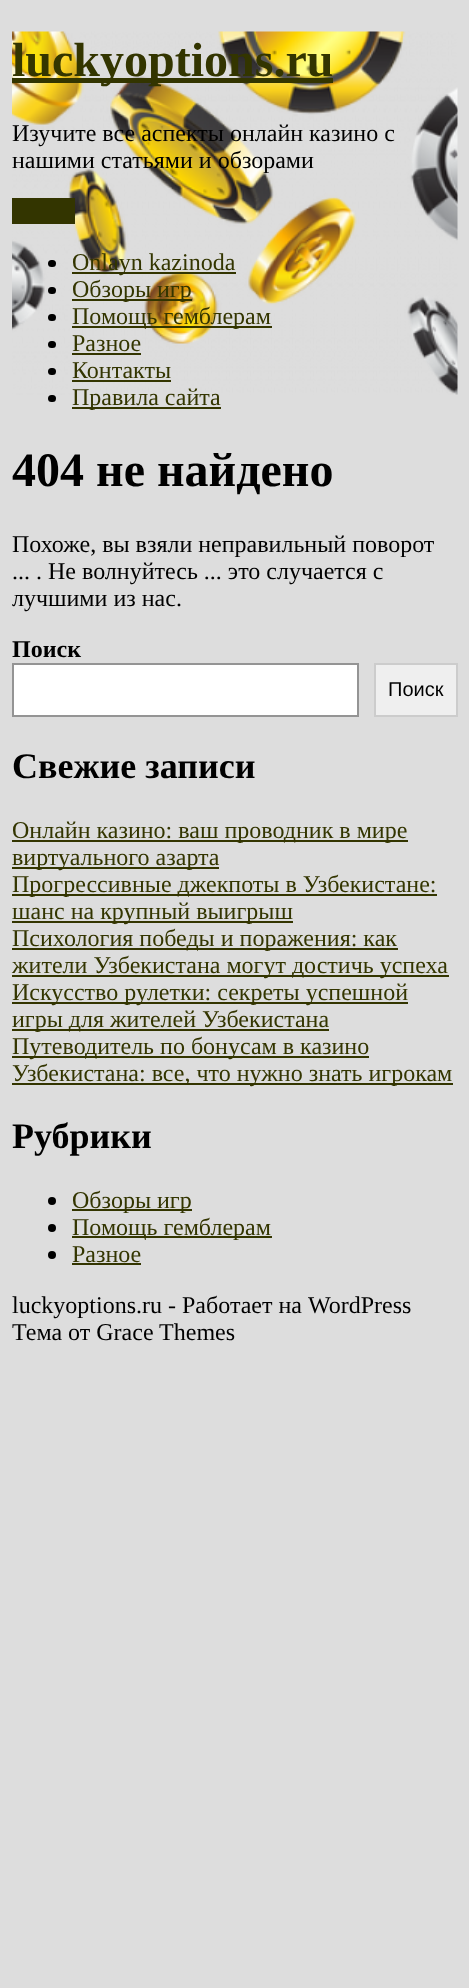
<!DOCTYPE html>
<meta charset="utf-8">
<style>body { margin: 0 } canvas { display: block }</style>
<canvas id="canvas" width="469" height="1988"></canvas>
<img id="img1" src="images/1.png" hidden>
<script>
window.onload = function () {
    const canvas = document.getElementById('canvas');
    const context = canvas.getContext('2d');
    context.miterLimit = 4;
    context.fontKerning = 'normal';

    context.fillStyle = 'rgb(221, 221, 221)';
    context.fillRect(0, 0, 469, 1988);
    context.drawImage(document.getElementById('img1'), 12, 31, 446, 364);
    context.fillStyle = 'rgb(51, 53, 0)';
    context.fillRect(12, 78, 321, 5);
    context.fillRect(12, 198, 63, 26);
    context.fillStyle = 'rgb(0, 0, 0)';
    context.beginPath();
    context.roundRect(48, 260, 8, 7, 3.5);
    context.fill();
    context.fillStyle = 'rgb(51, 53, 0)';
    context.fillRect(72, 272, 164, 2);
    context.fillStyle = 'rgb(0, 0, 0)';
    context.beginPath();
    context.roundRect(48, 287, 8, 7, 3.5);
    context.fill();
    context.fillStyle = 'rgb(51, 53, 0)';
    context.fillRect(72, 299, 120, 2);
    context.fillStyle = 'rgb(0, 0, 0)';
    context.beginPath();
    context.roundRect(48, 314, 8, 7, 3.5);
    context.fill();
    context.fillStyle = 'rgb(51, 53, 0)';
    context.fillRect(72, 326, 200, 2);
    context.fillStyle = 'rgb(0, 0, 0)';
    context.beginPath();
    context.roundRect(48, 341, 8, 7, 3.5);
    context.fill();
    context.fillStyle = 'rgb(51, 53, 0)';
    context.fillRect(72, 353, 69, 2);
    context.fillStyle = 'rgb(0, 0, 0)';
    context.beginPath();
    context.roundRect(48, 368, 8, 7, 3.5);
    context.fill();
    context.fillStyle = 'rgb(51, 53, 0)';
    context.fillRect(72, 380, 99, 2);
    context.fillStyle = 'rgb(0, 0, 0)';
    context.beginPath();
    context.roundRect(48, 395, 8, 7, 3.5);
    context.fill();
    context.fillStyle = 'rgb(51, 53, 0)';
    context.fillRect(72, 407, 149, 2);
    context.fillStyle = 'rgb(255, 255, 255)';
    context.beginPath();
    context.rect(13, 664, 345, 52);
    context.fill();
    context.strokeStyle = 'rgb(148, 148, 148)';
    context.lineWidth = 2;
    context.stroke();
    context.fillStyle = 'rgb(239, 239, 239)';
    context.beginPath();
    context.rect(375, 664, 82, 52);
    context.fill();
    context.strokeStyle = 'rgb(204, 204, 204)';
    context.stroke();
    context.fillStyle = 'rgb(51, 53, 0)';
    context.fillRect(12, 840, 396, 2);
    context.fillRect(12, 867, 207, 2);
    context.fillRect(12, 894, 425, 2);
    context.fillRect(12, 921, 281, 2);
    context.fillRect(12, 948, 386, 2);
    context.fillRect(12, 975, 437, 2);
    context.fillRect(12, 1002, 396, 2);
    context.fillRect(12, 1029, 317, 2);
    context.fillRect(12, 1056, 357, 2);
    context.fillRect(12, 1083, 441, 2);
    context.fillStyle = 'rgb(0, 0, 0)';
    context.beginPath();
    context.arc(52, 1201, 4, 0, 2 * Math.PI);
    context.fill();
    context.fillStyle = 'rgb(51, 53, 0)';
    context.fillRect(72, 1209, 120, 2);
    context.fillStyle = 'rgb(0, 0, 0)';
    context.beginPath();
    context.arc(52, 1228, 4, 0, 2 * Math.PI);
    context.fill();
    context.fillStyle = 'rgb(51, 53, 0)';
    context.fillRect(72, 1236, 200, 2);
    context.fillStyle = 'rgb(0, 0, 0)';
    context.beginPath();
    context.arc(52, 1255, 4, 0, 2 * Math.PI);
    context.fill();
    context.fillStyle = 'rgb(51, 53, 0)';
    context.fillRect(72, 1263, 69, 2);
    context.font = 'bold 48px Liberation Serif';
    context.fillText('luckyoptions.ru', 12, 76);
    context.font = '24px Liberation Serif';
    context.fillStyle = 'rgb(0, 0, 0)';
    context.fillText('Изучите все аспекты онлайн казино с', 12, 141);
    context.fillText('нашими статьями и обзорами', 12, 168);
    context.fillStyle = 'rgb(51, 53, 0)';
    context.fillText('Onlayn kazinoda', 72, 270);
    context.fillText('Обзоры игр', 72, 297);
    context.fillText('Помощь гемблерам', 72, 324);
    context.fillText('Разное', 72, 351);
    context.fillText('Контакты', 72, 378);
    context.fillText('Правила сайта', 72, 405);
    context.font = 'bold 48px Liberation Serif';
    context.fillStyle = 'rgb(0, 0, 0)';
    context.fillText('404 не найдено', 12, 486);
    context.font = '24px Liberation Serif';
    context.fillText('Похоже, вы взяли неправильный поворот', 12, 552);
    context.fillText('... . Не волнуйтесь ... это случается с', 12, 579);
    context.fillText('лучшими из нас.', 12, 606);
    context.font = 'bold 24px Liberation Serif';
    context.fillText('Поиск', 12, 657);
    context.font = '20px Liberation Sans';
    context.fillText('Поиск', 388, 696);
    context.font = 'bold 36px Liberation Serif';
    context.fillText('Свежие записи', 12, 778);
    context.font = '24px Liberation Serif';
    context.fillStyle = 'rgb(51, 53, 0)';
    context.fillText('Онлайн казино: ваш проводник в мире', 12, 838);
    context.fillText('виртуального азарта', 12, 865);
    context.fillText('Прогрессивные джекпоты в Узбекистане:', 12, 892);
    context.fillText('шанс на крупный выигрыш', 12, 919);
    context.fillText('Психология победы и поражения: как', 12, 946);
    context.fillText('жители Узбекистана могут достичь успеха', 12, 973);
    context.fillText('Искусство рулетки: секреты успешной', 12, 1000);
    context.fillText('игры для жителей Узбекистана', 12, 1027);
    context.fillText('Путеводитель по бонусам в казино', 12, 1054);
    context.fillText('Узбекистана: все, что нужно знать игрокам', 12, 1081);
    context.font = 'bold 36px Liberation Serif';
    context.fillStyle = 'rgb(0, 0, 0)';
    context.fillText('Рубрики', 12, 1148);
    context.font = '24px Liberation Serif';
    context.fillStyle = 'rgb(51, 53, 0)';
    context.fillText('Обзоры игр', 72, 1208);
    context.fillText('Помощь гемблерам', 72, 1235);
    context.fillText('Разное', 72, 1262);
    context.fillStyle = 'rgb(0, 0, 0)';
    context.fillText('luckyoptions.ru - Работает на WordPress', 12, 1313);
    context.fillText('Тема от Grace Themes', 12, 1340);
};
</script>
